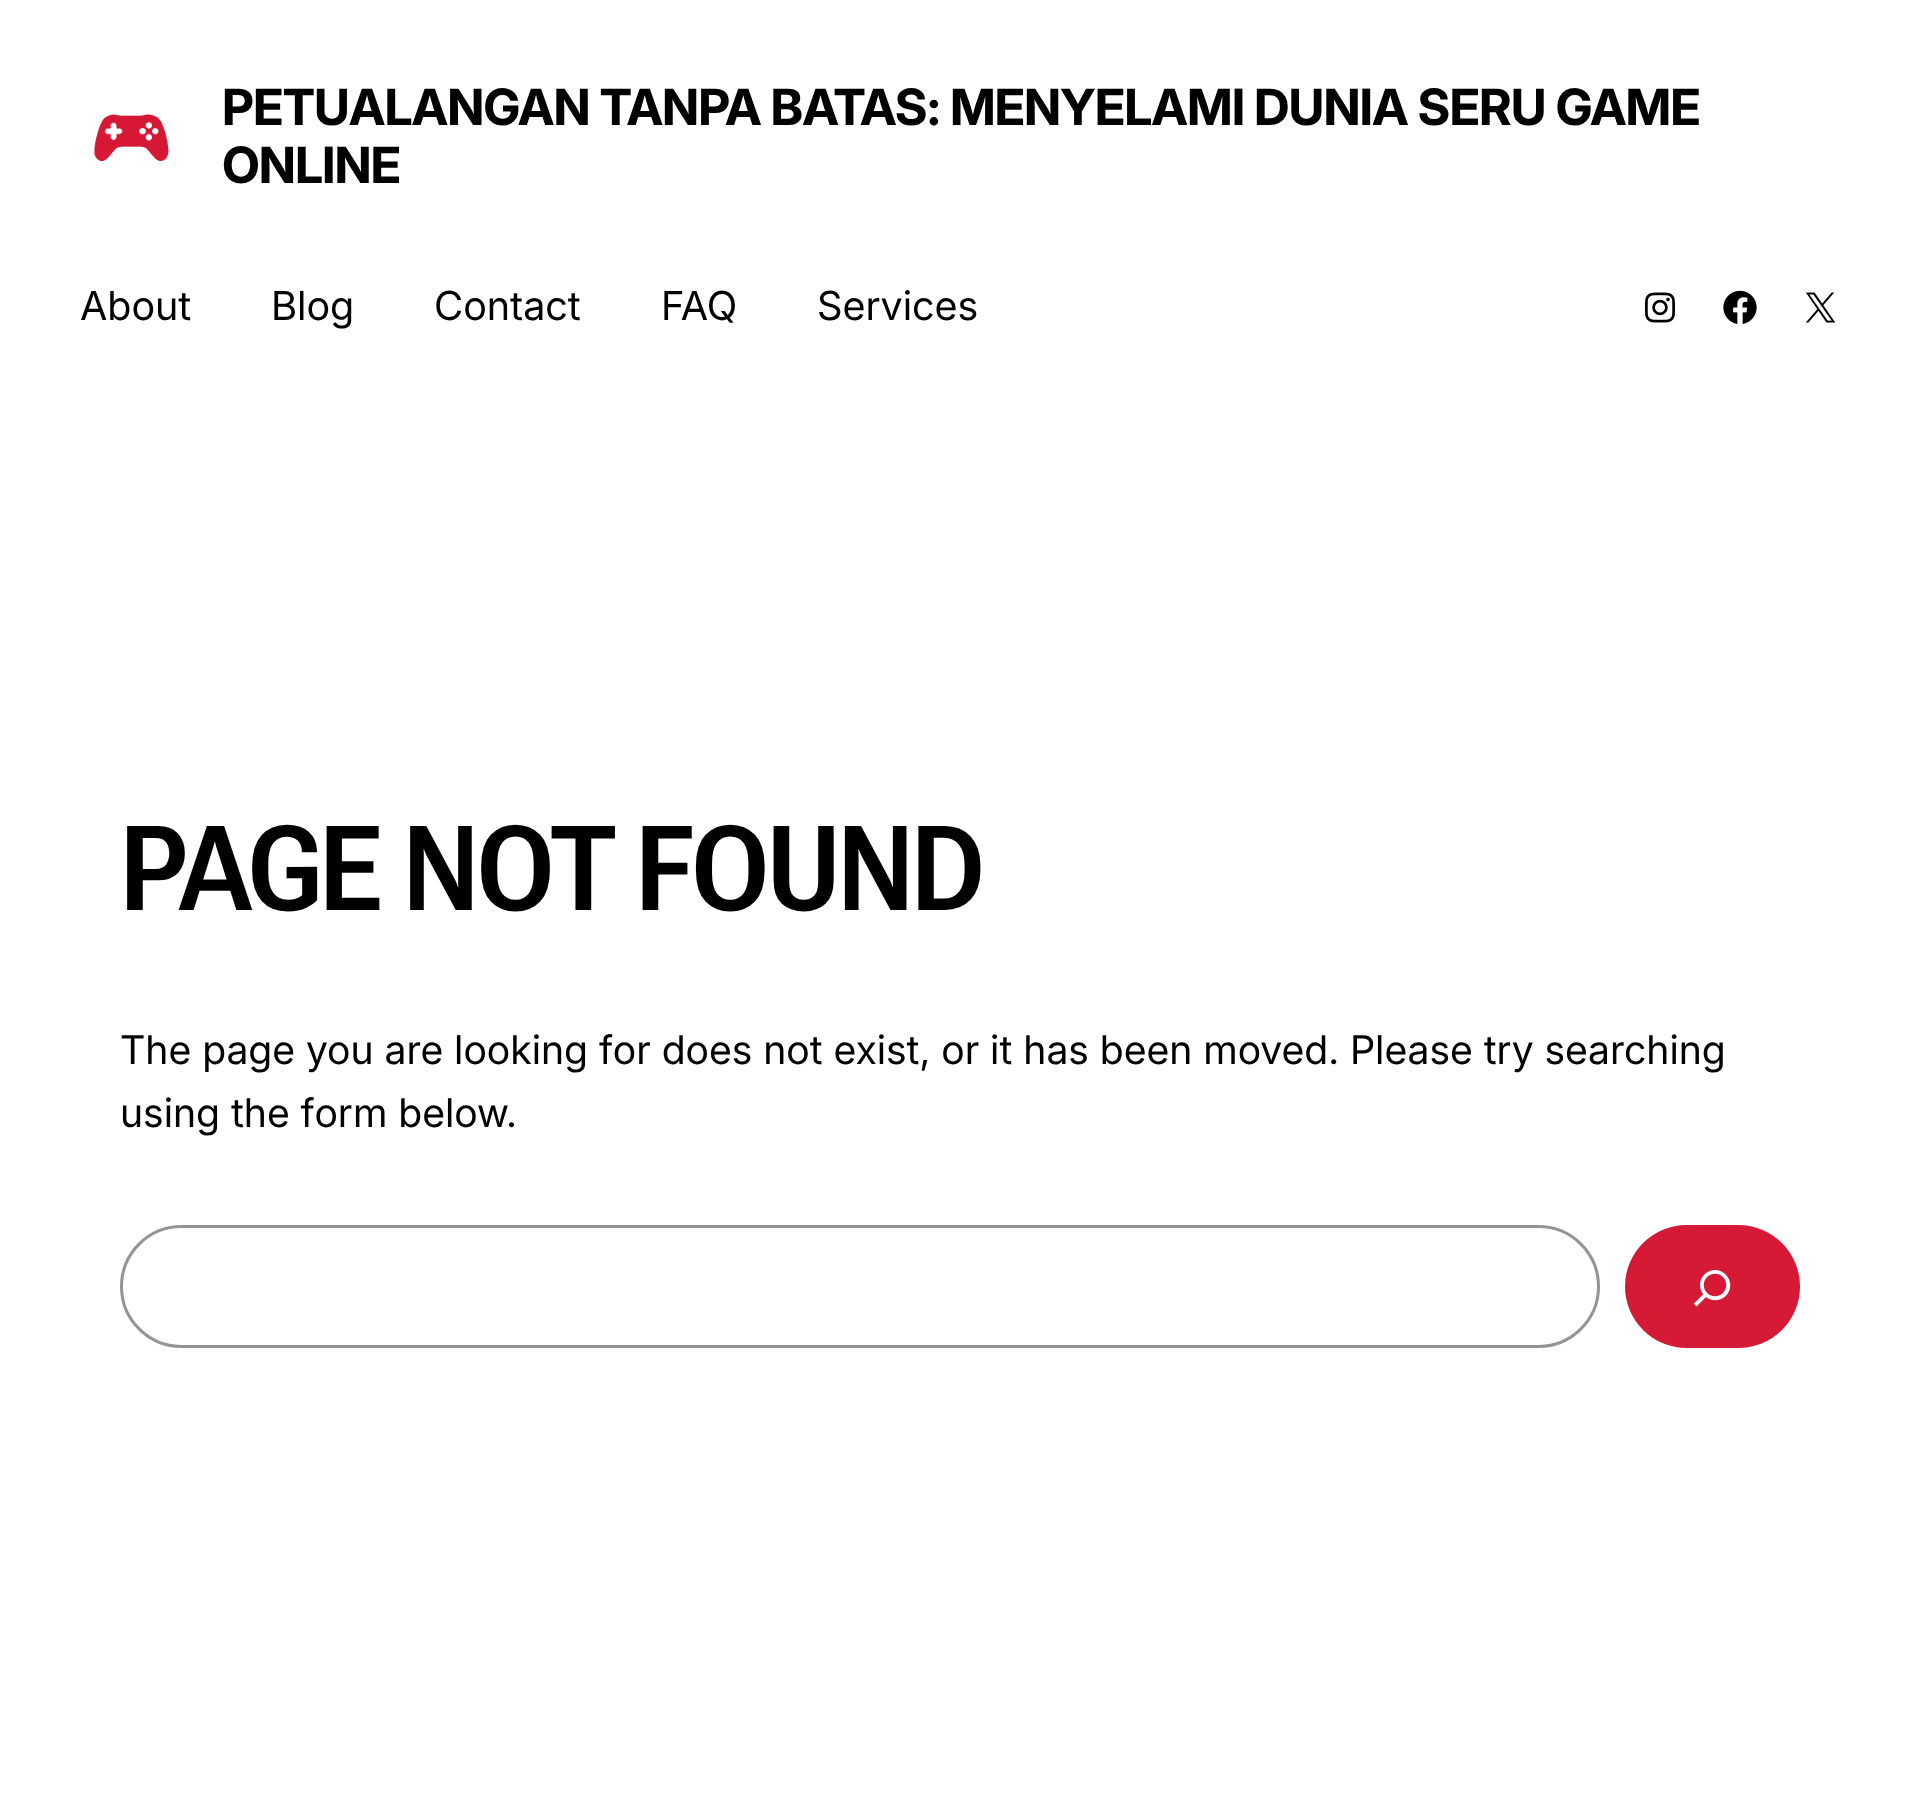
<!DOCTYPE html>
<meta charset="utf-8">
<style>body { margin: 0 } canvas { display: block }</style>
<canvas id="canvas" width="1919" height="1811"></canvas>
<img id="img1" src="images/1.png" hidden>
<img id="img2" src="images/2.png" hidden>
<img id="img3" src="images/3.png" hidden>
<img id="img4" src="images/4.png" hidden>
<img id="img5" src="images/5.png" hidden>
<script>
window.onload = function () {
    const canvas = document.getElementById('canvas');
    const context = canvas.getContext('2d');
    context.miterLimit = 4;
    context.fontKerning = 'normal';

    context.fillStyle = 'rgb(255, 255, 255)';
    context.fillRect(0, 0, 1919, 1811);
    context.drawImage(document.getElementById('img1'), 94, 114, 75, 47);
    context.drawImage(document.getElementById('img2'), 1645, 292, 30, 31);
    context.drawImage(document.getElementById('img3'), 1723, 290, 34, 34);
    context.drawImage(document.getElementById('img4'), 1805, 292, 31, 31);
    context.beginPath();
    context.roundRect(121.5, 1226.5, 1477, 120, 60);
    context.strokeStyle = 'rgb(148, 148, 148)';
    context.lineWidth = 3;
    context.stroke();
    context.fillStyle = 'rgb(214, 25, 53)';
    context.beginPath();
    context.roundRect(1625, 1225, 175, 123, 61.5);
    context.fill();
    context.drawImage(document.getElementById('img5'), 1693, 1270, 38, 37);
    context.letterSpacing = '-1px';
    context.font = 'bold 50px Inter';
    context.fillStyle = 'rgb(1, 1, 1)';
    context.fillText('PETUALANGAN TANPA BATAS: MENYELAMI DUNIA SERU GAME', 222, 125);
    context.fillText('ONLINE', 222, 183);
    context.letterSpacing = '0px';
    context.font = '40px "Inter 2"';
    context.fillText('About', 80, 320);
    context.fillText('Blog', 271, 320);
    context.fillText('Contact', 434, 320);
    context.fillText('FAQ', 661, 320);
    context.fillText('Services', 817, 320);
    context.letterSpacing = '-2.4px';
    context.font = '600 118px Roboto Flex';
    context.fillText('PAGE NOT FOUND', 120, 910);
    context.letterSpacing = '0px';
    context.font = '39.65px Inter';
    context.fillText('The page you are looking for does not exist, or it has been moved. Please try searching', 120, 1064);
    context.fillText('using the form below.', 120, 1127);
};
</script>
